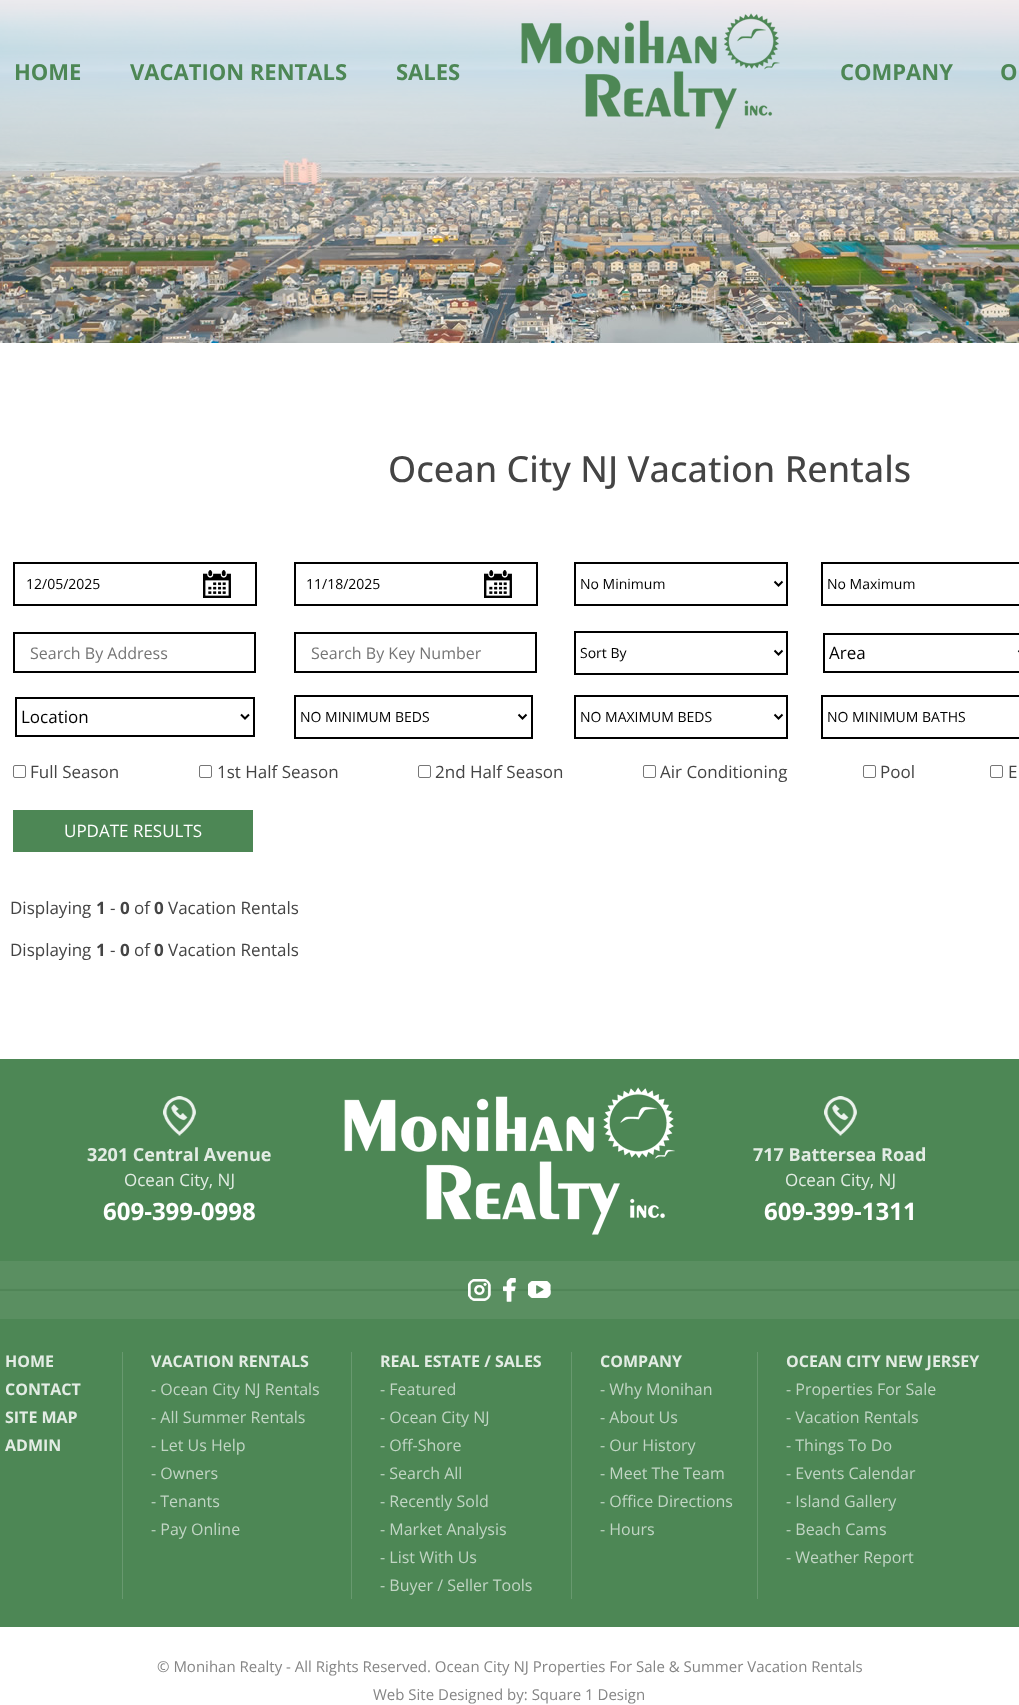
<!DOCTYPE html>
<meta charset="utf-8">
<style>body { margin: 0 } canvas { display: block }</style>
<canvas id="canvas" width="1019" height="1705"></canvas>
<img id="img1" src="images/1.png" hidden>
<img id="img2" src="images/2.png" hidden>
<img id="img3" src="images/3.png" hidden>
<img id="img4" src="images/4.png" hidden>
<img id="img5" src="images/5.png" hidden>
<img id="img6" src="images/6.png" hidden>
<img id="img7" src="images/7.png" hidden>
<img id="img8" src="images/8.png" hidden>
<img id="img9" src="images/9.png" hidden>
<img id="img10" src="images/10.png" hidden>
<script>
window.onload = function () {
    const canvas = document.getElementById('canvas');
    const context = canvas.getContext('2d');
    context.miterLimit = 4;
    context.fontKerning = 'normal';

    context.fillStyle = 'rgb(255, 255, 255)';
    context.fillRect(0, 0, 1019, 1705);
    context.drawImage(document.getElementById('img1'), 0, 0, 1019, 343);
    context.drawImage(document.getElementById('img2'), 0, 0, 1019, 253);
    context.drawImage(document.getElementById('img3'), 521, 13, 259, 116);
    context.fillStyle = 'rgb(0, 0, 0)';
    context.fillRect(13, 562, 244, 2);
    context.fillRect(255, 562, 2, 44);
    context.fillRect(13, 604, 244, 2);
    context.fillRect(13, 562, 2, 44);
    context.drawImage(document.getElementById('img4'), 203, 570, 28, 28);
    context.fillRect(294, 562, 244, 2);
    context.fillRect(536, 562, 2, 44);
    context.fillRect(294, 604, 244, 2);
    context.fillRect(294, 562, 2, 44);
    context.drawImage(document.getElementById('img4'), 484, 570, 28, 28);
    context.fillRect(574, 562, 214, 2);
    context.fillRect(786, 562, 2, 44);
    context.fillRect(574, 604, 214, 2);
    context.fillRect(574, 562, 2, 44);
    context.beginPath();
    context.moveTo(774.5, 581.5);
    context.lineTo(778.5, 585.5);
    context.lineTo(782.5, 581.5);
    context.strokeStyle = 'rgb(0, 0, 0)';
    context.lineWidth = 2;
    context.stroke();
    context.fillRect(821, 562, 198, 2);
    context.fillRect(821, 604, 198, 2);
    context.fillRect(821, 562, 2, 44);
    context.strokeRect(14, 633, 241, 39);
    context.strokeRect(295, 633, 241, 39);
    context.fillRect(574, 631, 214, 2);
    context.fillRect(786, 631, 2, 44);
    context.fillRect(574, 673, 214, 2);
    context.fillRect(574, 631, 2, 44);
    context.beginPath();
    context.moveTo(774.5, 650.5);
    context.lineTo(778.5, 654.5);
    context.lineTo(782.5, 650.5);
    context.stroke();
    context.strokeRect(824, 634, 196, 38);
    context.beginPath();
    context.moveTo(1018.5, 650.5);
    context.lineTo(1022.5, 654.5);
    context.lineTo(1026.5, 650.5);
    context.stroke();
    context.strokeRect(16, 698, 238, 38);
    context.beginPath();
    context.moveTo(241, 714.5);
    context.lineTo(245, 718.5);
    context.lineTo(249, 714.5);
    context.stroke();
    context.fillRect(294, 695, 239, 2);
    context.fillRect(531, 695, 2, 44);
    context.fillRect(294, 737, 239, 2);
    context.fillRect(294, 695, 2, 44);
    context.beginPath();
    context.moveTo(518.5, 714.5);
    context.lineTo(522.5, 718.5);
    context.lineTo(526.5, 714.5);
    context.stroke();
    context.fillRect(574, 695, 214, 2);
    context.fillRect(786, 695, 2, 44);
    context.fillRect(574, 737, 214, 2);
    context.fillRect(574, 695, 2, 44);
    context.beginPath();
    context.moveTo(774.5, 714.5);
    context.lineTo(778.5, 718.5);
    context.lineTo(782.5, 714.5);
    context.stroke();
    context.fillRect(821, 695, 198, 2);
    context.fillRect(821, 737, 198, 2);
    context.fillRect(821, 695, 2, 44);
    context.beginPath();
    context.roundRect(13.5, 765.5, 12, 12, 1.5);
    context.strokeStyle = 'rgb(118, 118, 118)';
    context.lineWidth = 1;
    context.stroke();
    context.beginPath();
    context.roundRect(199.5, 765.5, 12, 12, 1.5);
    context.stroke();
    context.beginPath();
    context.roundRect(418.5, 765.5, 12, 12, 1.5);
    context.stroke();
    context.beginPath();
    context.roundRect(643.5, 765.5, 12, 12, 1.5);
    context.stroke();
    context.beginPath();
    context.roundRect(863.5, 765.5, 12, 12, 1.5);
    context.stroke();
    context.beginPath();
    context.roundRect(990.5, 765.5, 12, 12, 1.5);
    context.stroke();
    context.fillStyle = 'rgb(77, 135, 85)';
    context.fillRect(13, 810, 240, 42);
    context.fillRect(0, 1059, 1019, 568);
    context.drawImage(document.getElementById('img5'), 163, 1096, 33, 40);
    context.drawImage(document.getElementById('img6'), 344, 1087, 331, 148);
    context.drawImage(document.getElementById('img5'), 824, 1096, 33, 40);
    context.drawImage(document.getElementById('img7'), 0, 1261, 1019, 58);
    context.drawImage(document.getElementById('img8'), 468, 1279, 23, 22);
    context.drawImage(document.getElementById('img9'), 503, 1278, 13, 24);
    context.drawImage(document.getElementById('img10'), 528, 1281, 23, 17);
    context.fillStyle = 'rgb(104, 153, 111)';
    context.fillRect(122, 1352, 1, 247);
    context.fillRect(351, 1352, 1, 247);
    context.fillRect(571, 1352, 1, 247);
    context.fillRect(757, 1352, 1, 247);
    context.font = 'bold 22px Open Sans';
    context.fillStyle = 'rgb(77, 135, 85)';
    context.fillText('HOME', 14, 80);
    context.fillText('VACATION RENTALS', 130, 80);
    context.fillText('SALES', 396, 80);
    context.fillText('COMPANY', 840, 80);
    context.fillText('O', 1000, 80);
    context.font = '500 36px Open Sans';
    context.fillStyle = 'rgb(68, 68, 68)';
    context.fillText('Ocean City NJ Vacation Rentals', 388, 482);
    context.font = '14px Open Sans';
    context.fillStyle = 'rgb(0, 0, 0)';
    context.fillText('12/05/2025', 26, 589);
    context.fillText('11/18/2025', 306, 589);
    context.fillText('No Minimum', 580, 589);
    context.fillText('No Maximum', 827, 589);
    context.font = '16px Open Sans';
    context.fillStyle = 'rgb(117, 117, 117)';
    context.fillText('Search By Address', 30, 659);
    context.fillText('Search By Key Number', 311, 659);
    context.font = '14px Open Sans';
    context.fillStyle = 'rgb(0, 0, 0)';
    context.fillText('Sort By', 580, 658);
    context.font = '17px Open Sans';
    context.fillText('Area', 829, 659);
    context.fillText('Location', 21, 723);
    context.font = '14px Open Sans';
    context.fillText('NO MINIMUM BEDS', 300, 722);
    context.fillText('NO MAXIMUM BEDS', 580, 722);
    context.fillText('NO MINIMUM BATHS', 827, 722);
    context.font = '17px Open Sans';
    context.fillStyle = 'rgb(68, 68, 68)';
    context.fillText('Full Season', 30, 778);
    context.fillText('1st Half Season', 217, 778);
    context.fillText('2nd Half Season', 435, 778);
    context.fillText('Air Conditioning', 660, 778);
    context.fillText('Pool', 880, 778);
    context.fillText('E', 1008, 778);
    context.fillStyle = 'rgb(255, 255, 255)';
    context.fillText('UPDATE RESULTS', 64, 837);
    context.fillStyle = 'rgb(68, 68, 68)';
    context.fillText('Displaying', 10, 914);
    context.font = 'bold 17px Open Sans';
    context.fillText('1', 96, 914);
    context.font = '17px Open Sans';
    context.fillText('-', 110, 914);
    context.font = 'bold 17px Open Sans';
    context.fillText('0', 120, 914);
    context.font = '17px Open Sans';
    context.fillText('of', 134, 914);
    context.font = 'bold 17px Open Sans';
    context.fillText('0', 154, 914);
    context.font = '17px Open Sans';
    context.fillText('Vacation Rentals', 168, 914);
    context.fillText('Displaying', 10, 956);
    context.font = 'bold 17px Open Sans';
    context.fillText('1', 96, 956);
    context.font = '17px Open Sans';
    context.fillText('-', 110, 956);
    context.font = 'bold 17px Open Sans';
    context.fillText('0', 120, 956);
    context.font = '17px Open Sans';
    context.fillText('of', 134, 956);
    context.font = 'bold 17px Open Sans';
    context.fillText('0', 154, 956);
    context.font = '17px Open Sans';
    context.fillText('Vacation Rentals', 168, 956);
    context.font = 'bold 18px Open Sans';
    context.fillStyle = 'rgb(227, 236, 228)';
    context.fillText('3201 Central Avenue', 87, 1161);
    context.font = '17px Open Sans';
    context.fillText('Ocean City, NJ', 124, 1186);
    context.font = 'bold 24px Open Sans';
    context.fillStyle = 'rgb(255, 255, 255)';
    context.fillText('609-399-0998', 103, 1220);
    context.font = 'bold 18px Open Sans';
    context.fillStyle = 'rgb(227, 236, 228)';
    context.fillText('717 Battersea Road', 753, 1161);
    context.font = '17px Open Sans';
    context.fillText('Ocean City, NJ', 785, 1186);
    context.font = 'bold 24px Open Sans';
    context.fillStyle = 'rgb(255, 255, 255)';
    context.fillText('609-399-1311', 764, 1220);
    context.font = 'bold 16px Open Sans';
    context.fillStyle = 'rgb(227, 236, 228)';
    context.fillText('HOME', 5, 1367);
    context.fillText('CONTACT', 5, 1395);
    context.fillText('SITE MAP', 5, 1423);
    context.fillText('ADMIN', 5, 1451);
    context.fillText('VACATION RENTALS', 151, 1367);
    context.font = '16px Open Sans';
    context.fillStyle = 'rgb(193, 213, 196)';
    context.fillText('- Ocean City NJ Rentals', 151, 1395);
    context.fillText('- All Summer Rentals', 151, 1423);
    context.fillText('- Let Us Help', 151, 1451);
    context.fillText('- Owners', 151, 1479);
    context.fillText('- Tenants', 151, 1507);
    context.fillText('- Pay Online', 151, 1535);
    context.font = 'bold 16px Open Sans';
    context.fillStyle = 'rgb(227, 236, 228)';
    context.fillText('REAL ESTATE / SALES', 380, 1367);
    context.font = '16px Open Sans';
    context.fillStyle = 'rgb(193, 213, 196)';
    context.fillText('- Featured', 380, 1395);
    context.fillText('- Ocean City NJ', 380, 1423);
    context.fillText('- Off-Shore', 380, 1451);
    context.fillText('- Search All', 380, 1479);
    context.fillText('- Recently Sold', 380, 1507);
    context.fillText('- Market Analysis', 380, 1535);
    context.fillText('- List With Us', 380, 1563);
    context.fillText('- Buyer / Seller Tools', 380, 1591);
    context.font = 'bold 16px Open Sans';
    context.fillStyle = 'rgb(227, 236, 228)';
    context.fillText('COMPANY', 600, 1367);
    context.font = '16px Open Sans';
    context.fillStyle = 'rgb(193, 213, 196)';
    context.fillText('- Why Monihan', 600, 1395);
    context.fillText('- About Us', 600, 1423);
    context.fillText('- Our History', 600, 1451);
    context.fillText('- Meet The Team', 600, 1479);
    context.fillText('- Office Directions', 600, 1507);
    context.fillText('- Hours', 600, 1535);
    context.font = 'bold 16px Open Sans';
    context.fillStyle = 'rgb(227, 236, 228)';
    context.fillText('OCEAN CITY NEW JERSEY', 786, 1367);
    context.font = '16px Open Sans';
    context.fillStyle = 'rgb(193, 213, 196)';
    context.fillText('- Properties For Sale', 786, 1395);
    context.fillText('- Vacation Rentals', 786, 1423);
    context.fillText('- Things To Do', 786, 1451);
    context.fillText('- Events Calendar', 786, 1479);
    context.fillText('- Island Gallery', 786, 1507);
    context.fillText('- Beach Cams', 786, 1535);
    context.fillText('- Weather Report', 786, 1563);
    context.font = '15px Open Sans';
    context.fillStyle = 'rgb(133, 133, 133)';
    context.fillText('© Monihan Realty - All Rights Reserved. Ocean City NJ Properties For Sale & Summer Vacation Rentals', 157, 1672);
    context.fillText('Web Site Designed by: Square 1 Design', 373, 1700);
};
</script>
